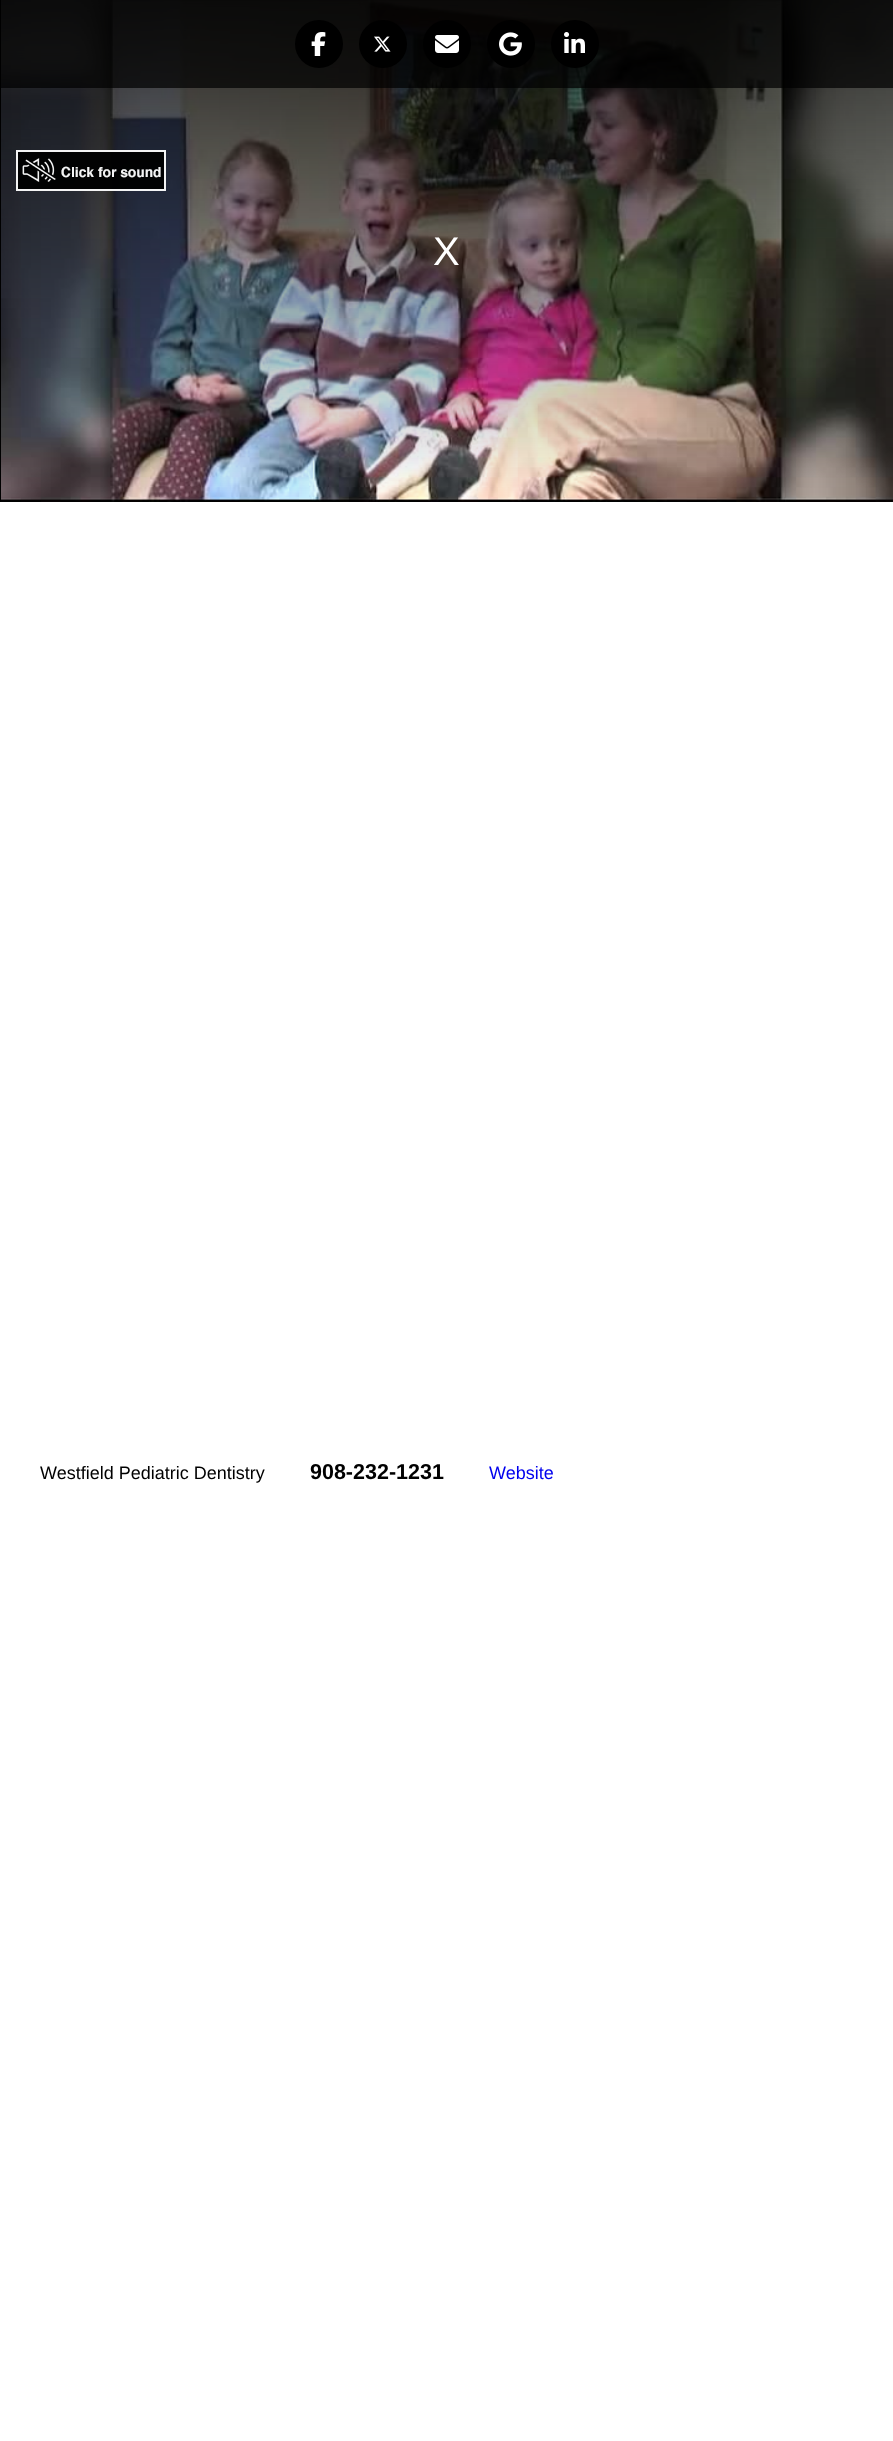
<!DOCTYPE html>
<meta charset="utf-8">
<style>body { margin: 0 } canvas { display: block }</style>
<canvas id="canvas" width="893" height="2441"></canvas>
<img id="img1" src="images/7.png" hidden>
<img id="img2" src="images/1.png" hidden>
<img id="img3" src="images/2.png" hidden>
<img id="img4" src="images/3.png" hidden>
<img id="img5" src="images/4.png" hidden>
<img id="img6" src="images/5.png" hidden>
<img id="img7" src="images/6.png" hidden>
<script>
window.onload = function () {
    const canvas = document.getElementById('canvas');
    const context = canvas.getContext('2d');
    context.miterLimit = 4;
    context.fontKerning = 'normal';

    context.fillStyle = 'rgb(255, 255, 255)';
    context.fillRect(0, 0, 893, 2441);
    context.drawImage(document.getElementById('img1'), 1, 0, 892, 502);
    context.fillStyle = 'rgba(0, 0, 0, 0.7)';
    context.fillRect(1, 0, 892, 88);
    context.fillStyle = 'rgb(0, 0, 0)';
    context.beginPath();
    context.arc(319, 44, 24, 0, 2 * Math.PI);
    context.fill();
    context.drawImage(document.getElementById('img2'), 311, 32, 15, 24);
    context.beginPath();
    context.arc(383, 44, 24, 0, 2 * Math.PI);
    context.fill();
    context.drawImage(document.getElementById('img3'), 374, 36, 17, 16);
    context.beginPath();
    context.arc(447, 44, 24, 0, 2 * Math.PI);
    context.fill();
    context.drawImage(document.getElementById('img4'), 435, 35, 24, 18);
    context.beginPath();
    context.arc(511, 44, 24, 0, 2 * Math.PI);
    context.fill();
    context.drawImage(document.getElementById('img5'), 499, 32, 23, 24);
    context.beginPath();
    context.arc(575, 44, 24, 0, 2 * Math.PI);
    context.fill();
    context.drawImage(document.getElementById('img6'), 564, 32, 21, 21);
    context.drawImage(document.getElementById('img7'), 16, 150, 150, 41);
    context.fillRect(0, 0, 1, 502);
    context.font = '40px Liberation Sans';
    context.fillStyle = 'rgb(255, 255, 255)';
    context.fillText('X', 433, 265);
    context.font = '18px Liberation Sans';
    context.fillStyle = 'rgb(0, 0, 0)';
    context.fillText('Westfield Pediatric Dentistry', 40, 1479);
    context.font = 'bold 21.5px Liberation Sans';
    context.fillText('908-232-1231', 310, 1479);
    context.font = '18px Liberation Sans';
    context.fillStyle = 'rgb(0, 0, 238)';
    context.fillText('Website', 489, 1479);
};
</script>
